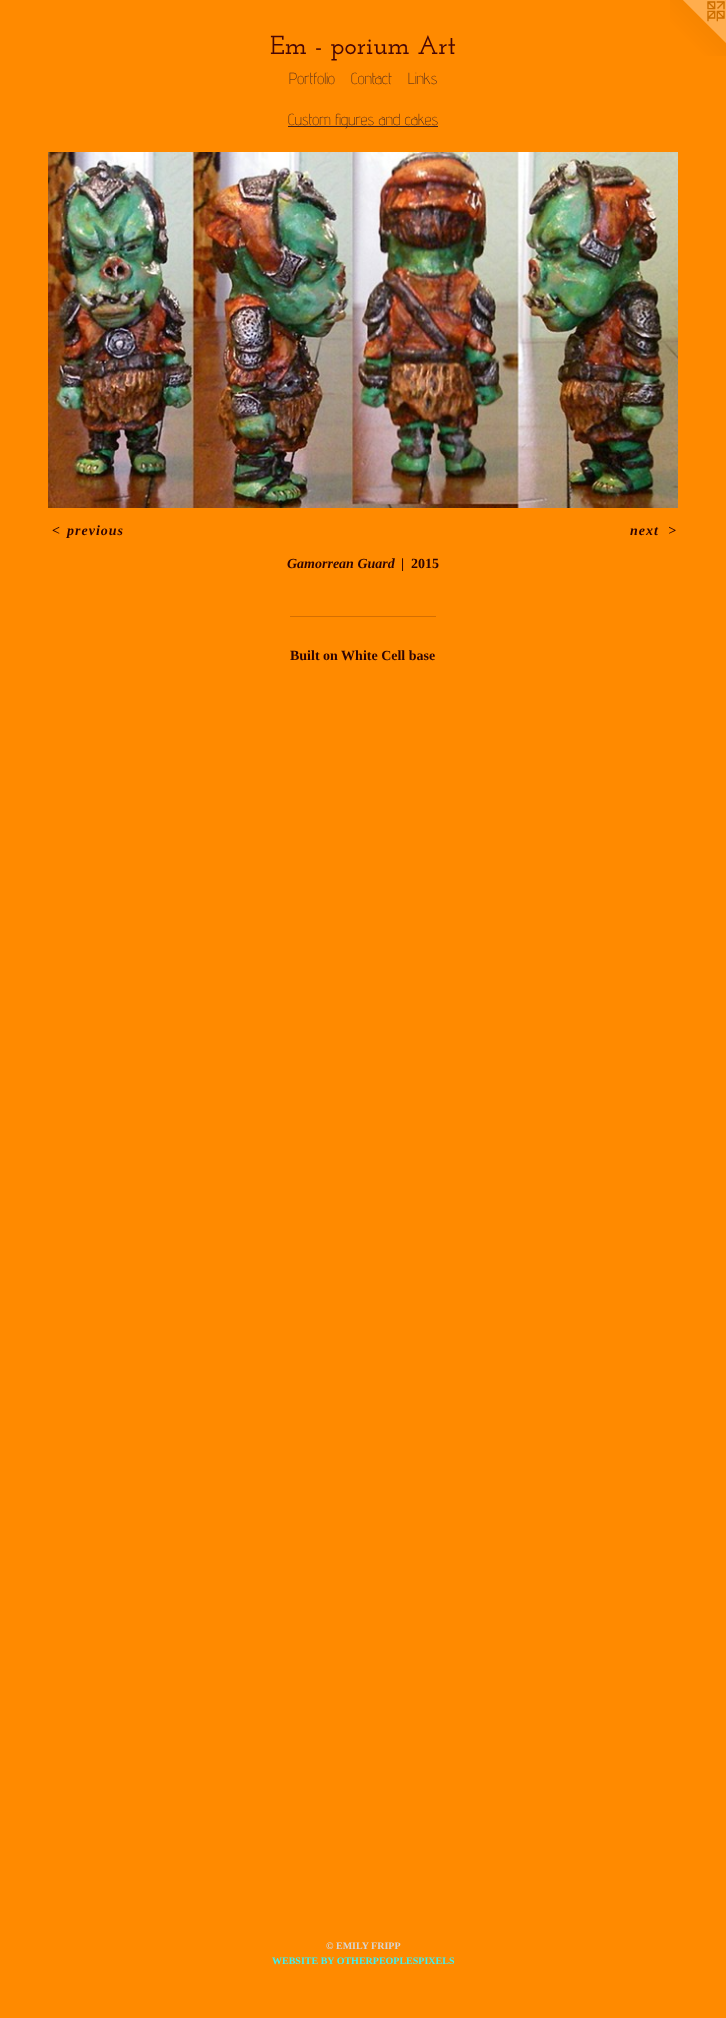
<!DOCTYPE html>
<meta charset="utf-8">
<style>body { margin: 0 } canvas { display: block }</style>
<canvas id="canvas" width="726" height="2018"></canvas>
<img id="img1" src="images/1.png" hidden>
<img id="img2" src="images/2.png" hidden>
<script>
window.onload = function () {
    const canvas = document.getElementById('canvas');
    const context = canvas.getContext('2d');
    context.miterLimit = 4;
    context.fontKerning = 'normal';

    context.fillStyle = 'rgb(255, 138, 0)';
    context.fillRect(0, 0, 726, 2018);
    context.drawImage(document.getElementById('img1'), 670, 0, 56, 56);
    context.fillStyle = 'rgb(60, 32, 32)';
    context.fillRect(288, 126, 150, 1);
    context.drawImage(document.getElementById('img2'), 48, 152, 630, 356);
    context.fillStyle = 'rgb(213, 111, 1)';
    context.fillRect(290, 616, 146, 1);
    context.font = '100 26px Josefin Slab';
    context.fillStyle = 'rgb(71, 6, 6)';
    context.fillText('Em - porium Art', 270, 54);
    context.font = '200 16px Advent Pro';
    context.fillStyle = 'rgb(60, 32, 32)';
    context.fillText('Portfolio', 289, 84);
    context.fillText('Contact', 351, 84);
    context.fillText('Links', 408, 84);
    context.fillText('Custom figures and cakes', 288, 125);
    context.letterSpacing = '1px';
    context.font = 'italic bold 14px Liberation Serif';
    context.fillStyle = 'rgb(47, 4, 4)';
    context.fillText('<', 52, 535);
    context.fillText('previous', 67, 535);
    context.fillText('next', 630, 535);
    context.fillText('>', 668, 535);
    context.letterSpacing = '0px';
    context.fillText('Gamorrean Guard', 287, 568);
    context.font = 'bold 14px Liberation Serif';
    context.fillText('|', 401, 568);
    context.fillText('2015', 411, 568);
    context.fillText('Built on White Cell base', 290, 660);
    context.font = 'bold 10px Liberation Serif';
    context.fillStyle = 'rgb(214, 214, 214)';
    context.fillText('© EMILY FRIPP', 326, 1949);
    context.fillStyle = 'rgb(63, 242, 243)';
    context.fillText('WEBSITE BY OTHERPEOPLESPIXELS', 272, 1964);
};
</script>
